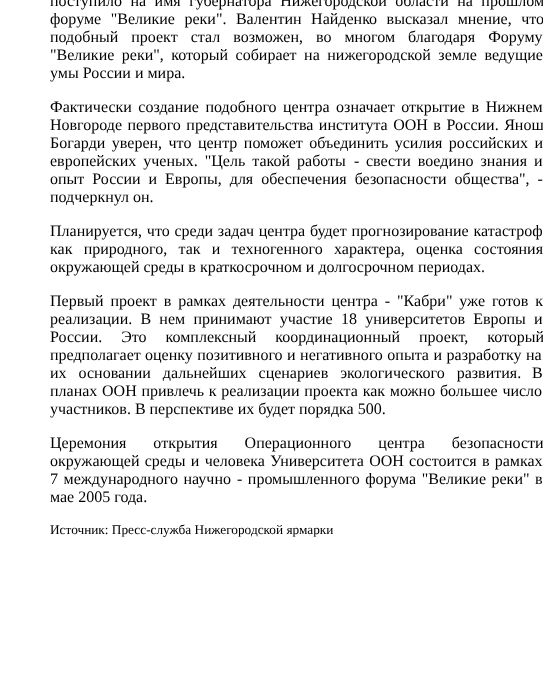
<!DOCTYPE html>
<meta charset="utf-8">
<style>body { margin: 0 } canvas { display: block }</style>
<canvas id="canvas" width="543" height="694"></canvas>
<script>
window.onload = function () {
    const canvas = document.getElementById('canvas');
    const context = canvas.getContext('2d');
    context.miterLimit = 4;
    context.fontKerning = 'normal';

    context.fillStyle = 'rgb(255, 255, 255)';
    context.fillRect(0, 0, 543, 694);
    context.wordSpacing = '4.5px';
    context.font = '16px Liberation Serif';
    context.fillStyle = 'rgb(0, 0, 0)';
    context.fillText('поступило на имя губернатора Нижегородской области на прошлом', 50, 6);
    context.wordSpacing = '5.5px';
    context.fillText('форуме "Великие реки". Валентин Найденко высказал мнение, что', 50, 24);
    context.wordSpacing = '9px';
    context.fillText('подобный проект стал возможен, во многом благодаря Форуму', 50, 42);
    context.wordSpacing = '3.5px';
    context.fillText('"Великие реки", который собирает на нижегородской земле ведущие', 50, 60);
    context.wordSpacing = '0px';
    context.fillText('умы России и мира.', 50, 78);
    context.wordSpacing = '2.5px';
    context.fillText('Фактически создание подобного центра означает открытие в Нижнем', 50, 112);
    context.wordSpacing = '1.5px';
    context.fillText('Новгороде первого представительства института ООН в России. Янош', 50, 130);
    context.wordSpacing = '2.5px';
    context.fillText('Богарди уверен, что центр поможет объединить усилия российских и', 50, 148);
    context.wordSpacing = '3px';
    context.fillText('европейских ученых. "Цель такой работы', 50, 166);
    context.wordSpacing = '0px';
    context.fillText('-', 354, 166);
    context.wordSpacing = '3px';
    context.fillText('свести воедино знания и', 366, 166);
    context.wordSpacing = '4px';
    context.fillText('опыт России и Европы, для обеспечения безопасности общества", -', 50, 184);
    context.wordSpacing = '0px';
    context.fillText('подчеркнул он.', 50, 202);
    context.wordSpacing = '0.75px';
    context.fillText('Планируется, что среди задач центра будет прогнозирование катастроф', 50, 236);
    context.wordSpacing = '7.25px';
    context.fillText('как природного, так и техногенного характера,', 50, 254);
    context.fillText('оценка состояния', 416, 254);
    context.wordSpacing = '0px';
    context.fillText('окружающей среды в краткосрочном и долгосрочном периодах.', 50, 272);
    context.wordSpacing = '2.9px';
    context.fillText('Первый проект в рамках деятельности центра - "Кабри" уже готов к', 50, 306);
    context.wordSpacing = '4.25px';
    context.fillText('реализации. В нем принимают участие 18 университетов Европы и', 50, 324);
    context.wordSpacing = '15px';
    context.fillText('России. Это комплексный координационный проект, который', 50, 342);
    context.wordSpacing = '0px';
    context.fillText('предполагает', 50, 360);
    context.wordSpacing = '0.5px';
    context.fillText('оценку позитивного и негативного опыта и разработку на', 145, 360);
    context.wordSpacing = '8px';
    context.fillText('их основании дальнейших сценариев экологического развития.', 50, 378);
    context.wordSpacing = '0px';
    context.fillText('В', 532, 378);
    context.wordSpacing = '0.75px';
    context.fillText('планах ООН привлечь к реализации проекта как можно большее число', 50, 396);
    context.wordSpacing = '0px';
    context.fillText('участников. В перспективе их будет порядка 500.', 50, 414);
    context.wordSpacing = '23px';
    context.fillText('Церемония открытия Операционного центра безопасности', 50, 448);
    context.wordSpacing = '1.25px';
    context.fillText('окружающей среды и человека Университета ООН состоится в рамках', 50, 466);
    context.wordSpacing = '1.5px';
    context.fillText('7 международного научно', 50, 484);
    context.fillText('- промышленного форума "Великие реки" в', 237, 484);
    context.wordSpacing = '0px';
    context.fillText('мае 2005 года.', 50, 502);
    context.font = '13.3px Liberation Serif';
    context.fillText('Источник: Пресс-служба Нижегородской ярмарки', 50, 534);
};
</script>
